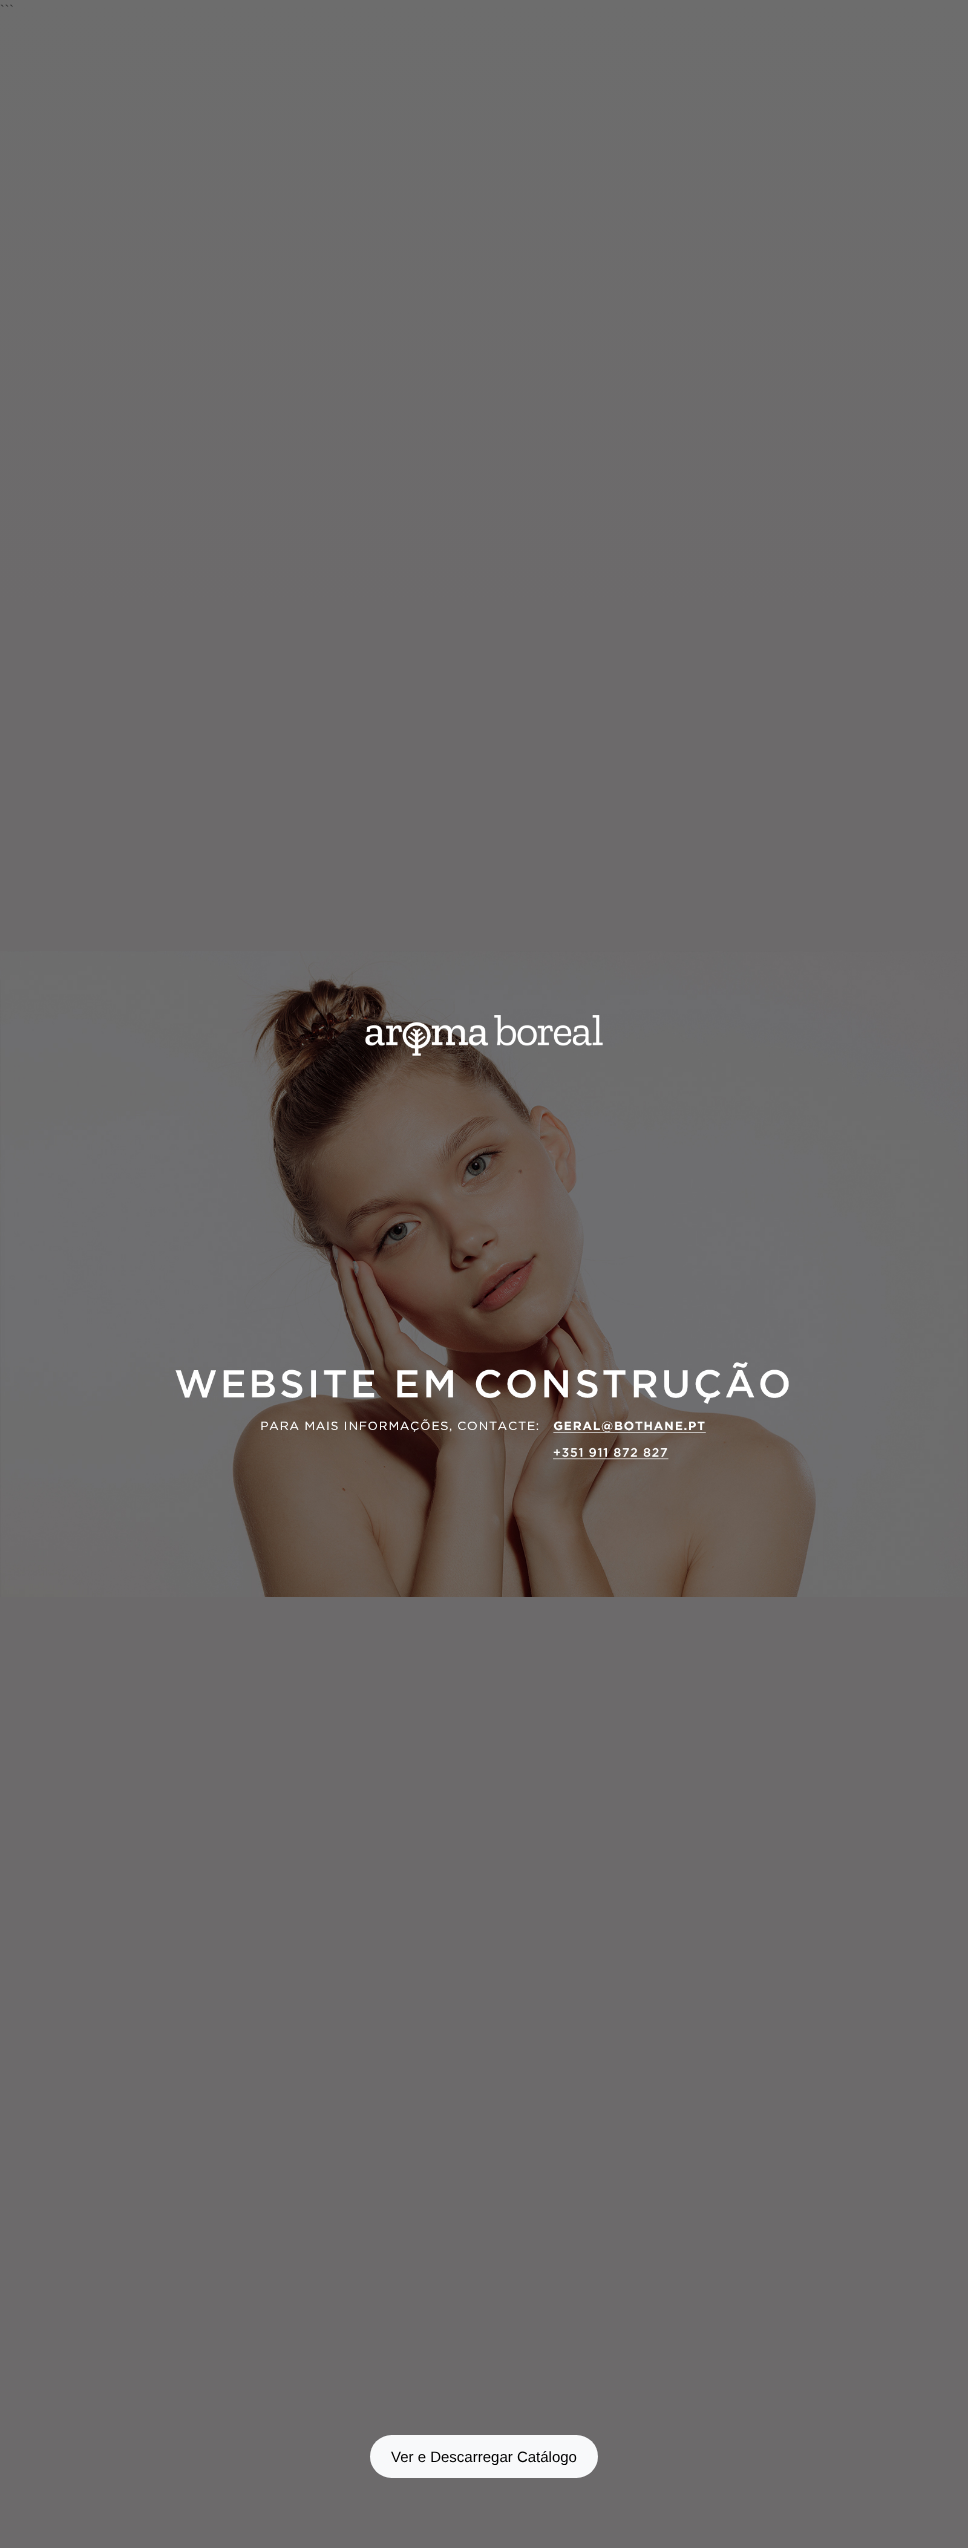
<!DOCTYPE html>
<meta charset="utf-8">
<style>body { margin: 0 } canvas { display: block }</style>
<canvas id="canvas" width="968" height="2548"></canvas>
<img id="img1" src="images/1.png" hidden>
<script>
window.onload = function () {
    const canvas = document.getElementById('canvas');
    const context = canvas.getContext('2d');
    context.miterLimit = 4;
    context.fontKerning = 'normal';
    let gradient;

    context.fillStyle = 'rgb(255, 255, 255)';
    context.fillRect(0, 0, 968, 2548);
    gradient = context.createLinearGradient(484, 0, 484, 2548);
    gradient.addColorStop(0, 'rgb(109, 109, 109)');
    gradient.addColorStop(0.24, 'rgb(108, 106, 107)');
    context.fillStyle = gradient;
    context.fillRect(0, 0, 968, 2548);
    context.drawImage(document.getElementById('img1'), 0, 951, 967, 646);
    context.fillStyle = 'rgb(248, 249, 250)';
    context.beginPath();
    context.roundRect(370, 2435, 228, 43, 21.5);
    context.fill();
    context.font = '14px Liberation Sans';
    context.fillStyle = 'rgb(51, 51, 51)';
    context.fillText('```', 0, 15);
    context.font = '15px Liberation Sans';
    context.fillStyle = 'rgb(0, 0, 0)';
    context.fillText('Ver e Descarregar Catálogo', 391, 2462);
};
</script>
